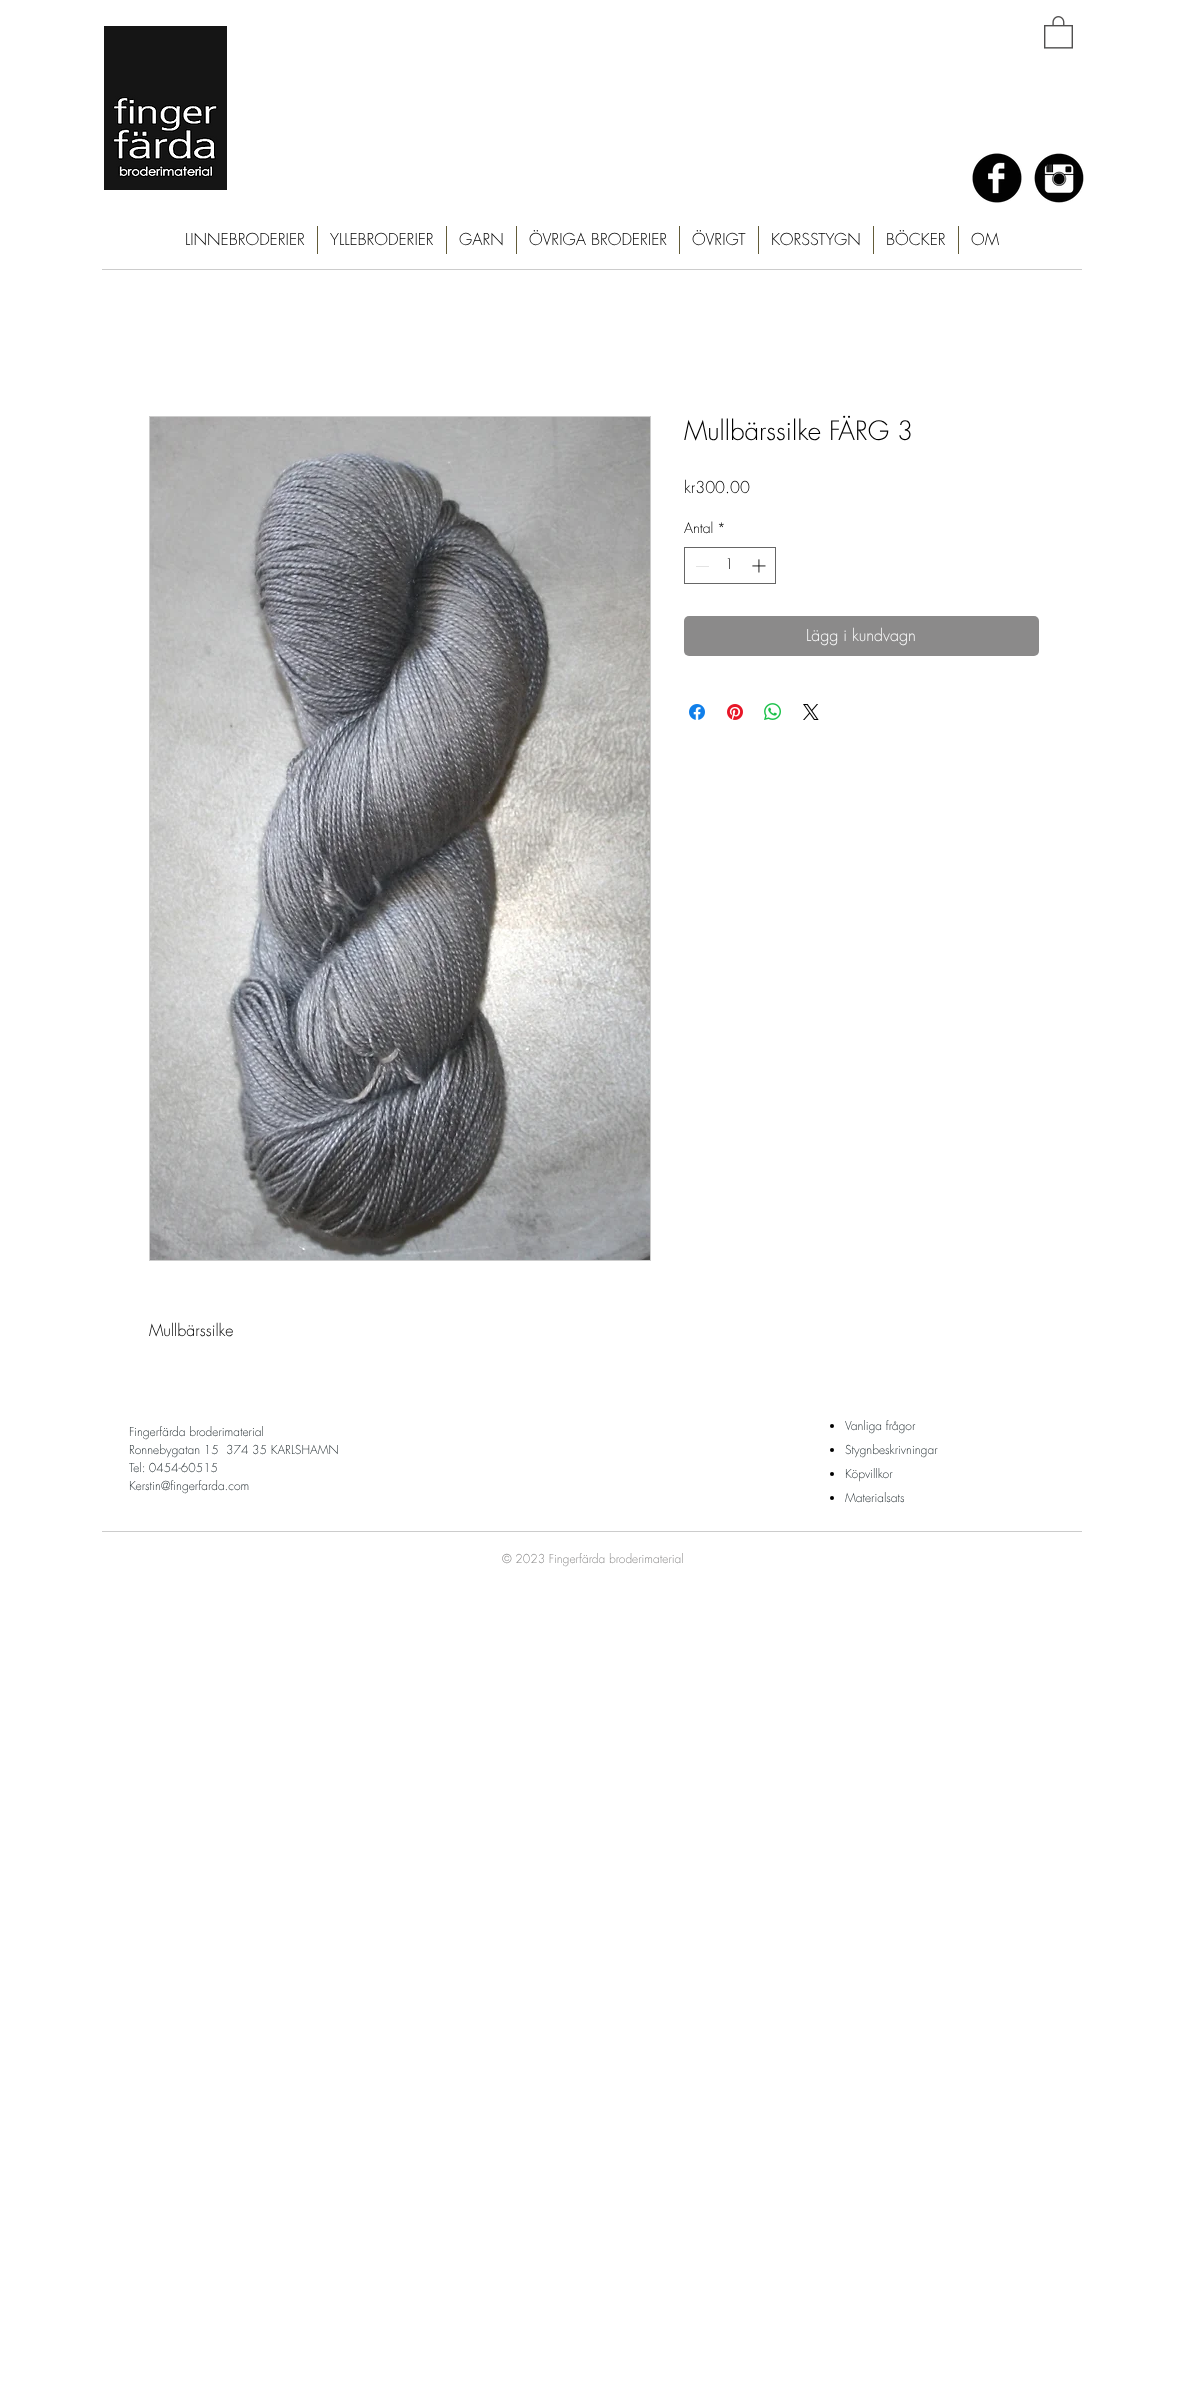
<!DOCTYPE html>
<meta charset="utf-8">
<style>body { margin: 0 } canvas { display: block }</style>
<canvas id="canvas" width="1187" height="2403"></canvas>
<img id="img1" src="images/1.png" hidden>
<img id="img2" src="images/2.png" hidden>
<img id="img3" src="images/3.png" hidden>
<img id="img4" src="images/4.png" hidden>
<img id="img5" src="images/5.png" hidden>
<img id="img6" src="images/6.png" hidden>
<img id="img7" src="images/7.png" hidden>
<img id="img8" src="images/8.png" hidden>
<img id="img9" src="images/9.png" hidden>
<img id="img10" src="images/10.png" hidden>
<script>
window.onload = function () {
    const canvas = document.getElementById('canvas');
    const context = canvas.getContext('2d');
    context.miterLimit = 4;
    context.fontKerning = 'normal';

    context.fillStyle = 'rgb(255, 255, 255)';
    context.fillRect(0, 0, 1187, 2403);
    context.drawImage(document.getElementById('img1'), 104, 26, 123, 164);
    context.drawImage(document.getElementById('img2'), 1044, 16, 29, 33);
    context.drawImage(document.getElementById('img3'), 972, 153, 50, 50);
    context.drawImage(document.getElementById('img4'), 1034, 153, 50, 50);
    context.fillStyle = 'rgb(99, 91, 56)';
    context.fillRect(317, 226, 1, 28);
    context.fillRect(446, 226, 1, 28);
    context.fillRect(516, 226, 1, 28);
    context.fillRect(679, 226, 1, 28);
    context.fillRect(758, 226, 1, 28);
    context.fillRect(873, 226, 1, 28);
    context.fillRect(958, 226, 1, 28);
    context.fillStyle = 'rgb(204, 204, 204)';
    context.fillRect(102, 269, 980, 1);
    context.strokeStyle = 'rgb(102, 102, 102)';
    context.strokeRect(684.5, 547.5, 91, 36);
    context.fillStyle = 'rgb(227, 227, 227)';
    context.fillRect(696, 566, 13, 1);
    context.drawImage(document.getElementById('img5'), 752, 559, 14, 14);
    context.fillStyle = 'rgb(139, 138, 138)';
    context.beginPath();
    context.roundRect(684, 616, 355, 40, 5);
    context.fill();
    context.drawImage(document.getElementById('img6'), 689, 704, 16, 16);
    context.drawImage(document.getElementById('img7'), 727, 704, 16, 16);
    context.drawImage(document.getElementById('img8'), 764, 703, 17, 17);
    context.drawImage(document.getElementById('img9'), 803, 704, 16, 16);
    context.strokeStyle = 'rgb(204, 204, 204)';
    context.strokeRect(149.5, 416.5, 501, 844);
    context.drawImage(document.getElementById('img10'), 150, 417, 500, 843);
    context.fillStyle = 'rgb(0, 0, 0)';
    context.beginPath();
    context.arc(832, 1426, 2, 0, 2 * Math.PI);
    context.fill();
    context.beginPath();
    context.arc(832, 1450, 2, 0, 2 * Math.PI);
    context.fill();
    context.beginPath();
    context.arc(832, 1474, 2, 0, 2 * Math.PI);
    context.fill();
    context.beginPath();
    context.arc(832, 1498, 2, 0, 2 * Math.PI);
    context.fill();
    context.fillStyle = 'rgb(204, 204, 204)';
    context.fillRect(102, 1531, 980, 1);
    context.font = '300 16px futura';
    context.fillStyle = 'rgb(0, 0, 0)';
    context.fillText('LINNEBRODERIER', 185, 245);
    context.fillText('YLLEBRODERIER', 330, 245);
    context.fillText('GARN', 459, 245);
    context.fillText('ÖVRIGA BRODERIER', 529, 245);
    context.fillText('ÖVRIGT', 692, 245);
    context.fillText('KORSSTYGN', 771, 245);
    context.fillText('BÖCKER', 886, 245);
    context.fillText('OM', 971, 245);
    context.font = '300 26px futura';
    context.fillText('Mullbärssilke FÄRG 3', 684, 440);
    context.font = '300 16px futura';
    context.fillText('kr300.00', 684, 493);
    context.font = '300 14px futura';
    context.fillText('Antal', 684, 533);
    context.fillText('*', 717, 533);
    context.fillText('1', 725, 569);
    context.font = '300 16px futura';
    context.fillStyle = 'rgb(255, 255, 255)';
    context.fillText('Lägg i kundvagn', 806, 641);
    context.fillStyle = 'rgb(0, 0, 0)';
    context.fillText('Mullbärssilke', 149, 1336);
    context.font = '300 12px futura';
    context.fillStyle = 'rgb(40, 50, 54)';
    context.fillText('Fingerfärda broderimaterial', 129, 1436);
    context.fillText('Ronnebygatan 15  374 35 KARLSHAMN', 129, 1454);
    context.fillText('Tel: 0454-60515', 129, 1472);
    context.fillText('Kerstin@fingerfarda.com', 129, 1490);
    context.fillText('Vanliga frågor', 845, 1430);
    context.fillText('Stygnbeskrivningar', 845, 1454);
    context.fillText('Köpvillkor', 845, 1478);
    context.fillText('Materialsats', 845, 1502);
    context.fillStyle = 'rgb(139, 138, 138)';
    context.fillText('© 2023 Fingerfärda broderimaterial', 502, 1563);
};
</script>
